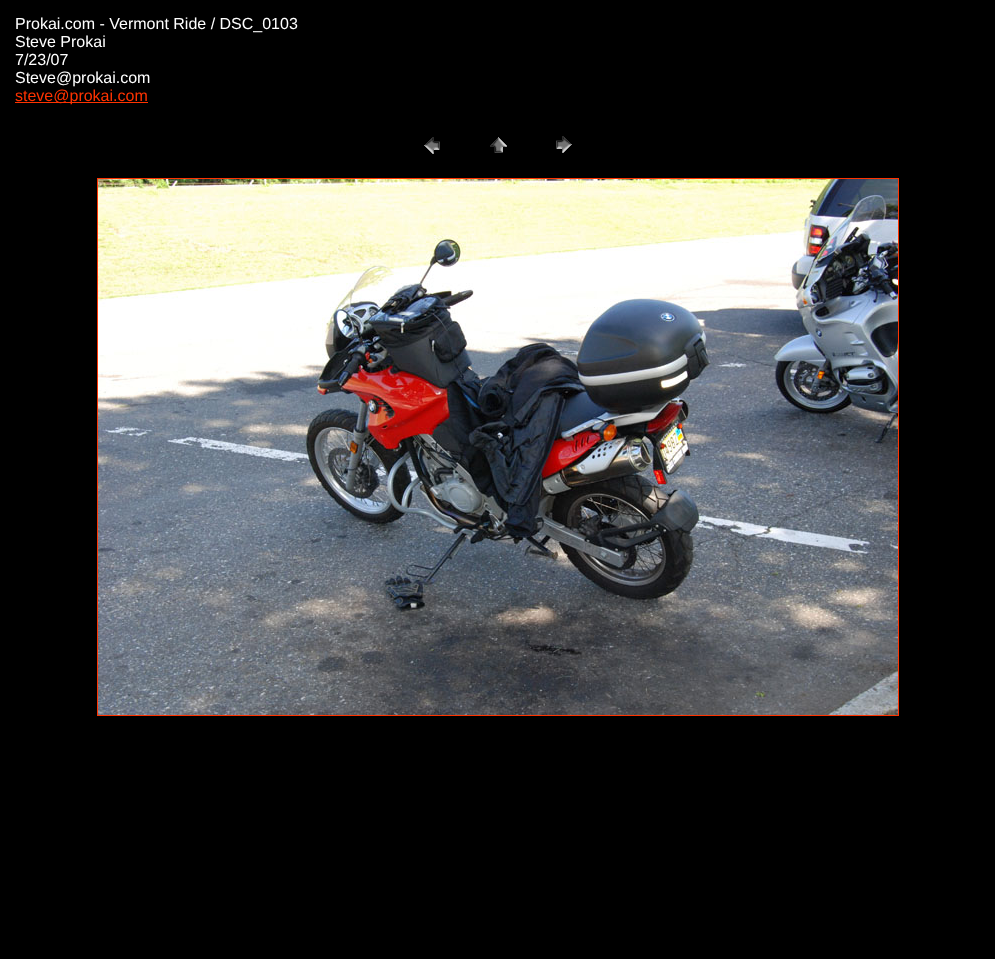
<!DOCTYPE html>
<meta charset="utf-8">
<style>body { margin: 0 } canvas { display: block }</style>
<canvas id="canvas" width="995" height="959"></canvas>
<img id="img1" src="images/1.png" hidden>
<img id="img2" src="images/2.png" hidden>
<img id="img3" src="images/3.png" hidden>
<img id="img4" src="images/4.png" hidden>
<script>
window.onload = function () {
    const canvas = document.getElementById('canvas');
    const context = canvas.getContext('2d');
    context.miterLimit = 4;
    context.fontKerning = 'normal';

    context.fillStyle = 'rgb(0, 0, 0)';
    context.fillRect(0, 0, 995, 959);
    context.fillStyle = 'rgb(255, 51, 0)';
    context.fillRect(15, 102, 133, 1);
    context.drawImage(document.getElementById('img1'), 424, 137, 16, 17);
    context.drawImage(document.getElementById('img2'), 490, 137, 17, 16);
    context.drawImage(document.getElementById('img3'), 556, 136, 16, 17);
    context.strokeStyle = 'rgb(255, 51, 0)';
    context.strokeRect(97.5, 178.5, 801, 537);
    context.drawImage(document.getElementById('img4'), 98, 179, 800, 536);
    context.font = '16px Liberation Sans';
    context.fillStyle = 'rgb(255, 255, 255)';
    context.fillText('Prokai.com - Vermont Ride / DSC_0103', 15, 29);
    context.fillText('Steve Prokai', 15, 47);
    context.fillText('7/23/07', 15, 65);
    context.fillText('Steve@prokai.com', 15, 83);
    context.fillStyle = 'rgb(255, 51, 0)';
    context.fillText('steve@prokai.com', 15, 101);
};
</script>
